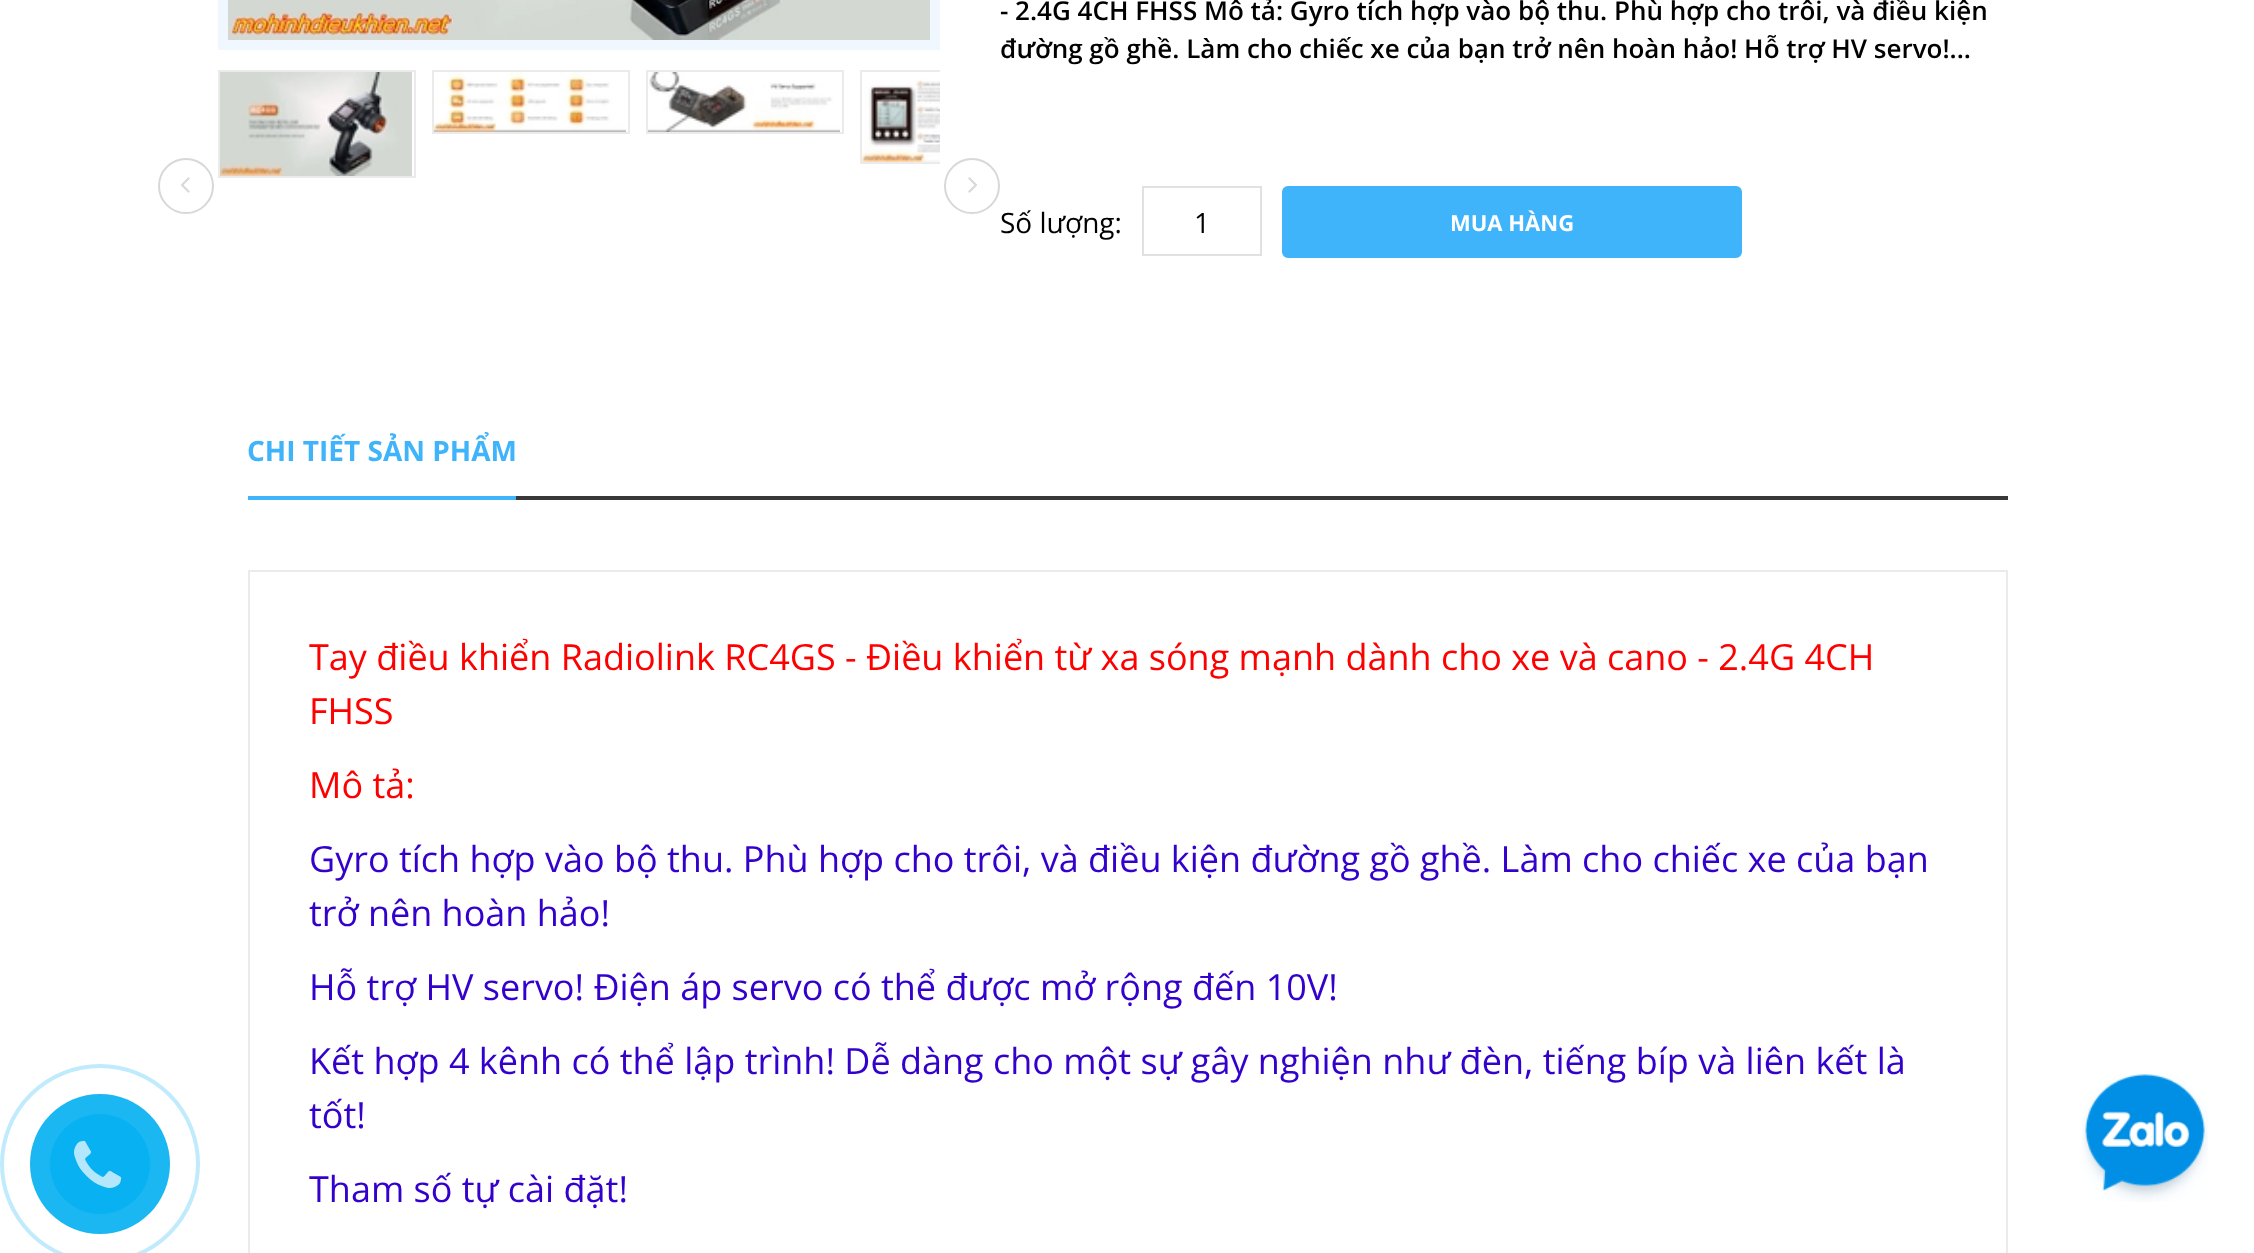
<!DOCTYPE html>
<meta charset="utf-8">
<style>body { margin: 0 } canvas { display: block }</style>
<canvas id="canvas" width="2254" height="1253"></canvas>
<img id="img1" src="images/1.png" hidden>
<img id="img2" src="images/2.png" hidden>
<img id="img3" src="images/3.png" hidden>
<img id="img4" src="images/4.png" hidden>
<img id="img5" src="images/5.png" hidden>
<img id="img6" src="images/6.png" hidden>
<img id="img7" src="images/7.png" hidden>
<img id="img8" src="images/8.png" hidden>
<img id="img9" src="images/9.png" hidden>
<script>
window.onload = function () {
    const canvas = document.getElementById('canvas');
    const context = canvas.getContext('2d');
    context.miterLimit = 4;
    context.fontKerning = 'normal';

    context.fillStyle = 'rgb(255, 255, 255)';
    context.fillRect(0, 0, 2254, 1253);
    context.beginPath();
    context.arc(100, 1164, 98, 0, 2 * Math.PI);
    context.strokeStyle = 'rgb(191, 235, 252)';
    context.lineWidth = 4;
    context.stroke();
    context.fillStyle = 'rgb(26, 183, 243)';
    context.beginPath();
    context.arc(100, 1164, 70, 0, 2 * Math.PI);
    context.fill();
    context.fillStyle = 'rgb(8, 177, 242)';
    context.beginPath();
    context.arc(100, 1164, 50, 0, 2 * Math.PI);
    context.fill();
    context.drawImage(document.getElementById('img1'), 74, 1140, 48, 48);
    context.strokeStyle = 'rgb(240, 247, 255)';
    context.lineWidth = 10;
    context.strokeRect(223, -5, 712, 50);
    context.drawImage(document.getElementById('img2'), 228, 0, 702, 40);
    context.strokeStyle = 'rgb(235, 235, 235)';
    context.lineWidth = 2;
    context.strokeRect(219, 71, 196, 106);
    context.drawImage(document.getElementById('img3'), 220, 72, 192, 104);
    context.strokeRect(433, 71, 196, 62);
    context.drawImage(document.getElementById('img4'), 434, 72, 192, 60);
    context.strokeRect(647, 71, 196, 62);
    context.drawImage(document.getElementById('img5'), 648, 72, 192, 60);
    context.save();
    context.beginPath();
    context.rect(218, 70, 722, 230);
    context.clip();
    context.strokeRect(861, 71, 196, 92);
    context.restore();
    context.drawImage(document.getElementById('img6'), 862, 79, 78, 83);
    context.beginPath();
    context.arc(186, 186, 27, 0, 2 * Math.PI);
    context.strokeStyle = 'rgb(216, 216, 216)';
    context.stroke();
    context.drawImage(document.getElementById('img7'), 181, 177, 9, 16);
    context.beginPath();
    context.arc(972, 186, 27, 0, 2 * Math.PI);
    context.stroke();
    context.drawImage(document.getElementById('img8'), 968, 177, 9, 16);
    context.strokeStyle = 'rgb(225, 225, 225)';
    context.strokeRect(1143, 187, 118, 68);
    context.fillStyle = 'rgb(63, 180, 251)';
    context.beginPath();
    context.roundRect(1284, 188, 456, 68, 4);
    context.fill();
    context.strokeStyle = 'rgb(63, 180, 251)';
    context.lineWidth = 4;
    context.stroke();
    context.fillStyle = 'rgb(56, 56, 56)';
    context.fillRect(516, 496, 1492, 4);
    context.fillStyle = 'rgb(63, 180, 251)';
    context.fillRect(248, 496, 268, 4);
    context.strokeStyle = 'rgb(235, 235, 235)';
    context.lineWidth = 2;
    context.strokeRect(249, 571, 1758, 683);
    context.drawImage(document.getElementById('img9'), 2082, 1074, 126, 128);
    context.font = '600 26px Open Sans';
    context.fillStyle = 'rgb(0, 0, 0)';
    context.fillText('- 2.4G 4CH FHSS Mô tả: Gyro tích hợp vào bộ thu. Phù hợp cho trôi, và điều kiện', 1000, 20);
    context.fillText('đường gồ ghề. Làm cho chiếc xe của bạn trở nên hoàn hảo! Hỗ trợ HV servo!...', 1000, 58);
    context.font = '28px Open Sans';
    context.fillText('Số lượng:', 1000, 233);
    context.fillText('1', 1194, 233);
    context.font = 'bold 22px Open Sans';
    context.fillStyle = 'rgb(255, 255, 255)';
    context.fillText('MUA HÀNG', 1450, 231);
    context.font = 'bold 28px Open Sans';
    context.fillStyle = 'rgb(63, 180, 251)';
    context.fillText('CHI TIẾT SẢN PHẨM', 247, 461);
    context.font = '36px Open Sans';
    context.fillStyle = 'rgb(255, 0, 0)';
    context.fillText('Tay điều khiển Radiolink RC4GS - Điều khiển từ xa sóng mạnh dành cho xe và cano - 2.4G 4CH', 309, 670);
    context.fillText('FHSS', 309, 724);
    context.fillText('Mô tả:', 309, 798);
    context.fillStyle = 'rgb(51, 0, 204)';
    context.fillText('Gyro tích hợp vào bộ thu. Phù hợp cho trôi, và điều kiện đường gồ ghề. Làm cho chiếc xe của bạn', 309, 872);
    context.fillText('trở nên hoàn hảo!', 309, 926);
    context.fillText('Hỗ trợ HV servo! Điện áp servo có thể được mở rộng đến 10V!', 309, 1000);
    context.fillText('Kết hợp 4 kênh có thể lập trình! Dễ dàng cho một sự gây nghiện như đèn, tiếng bíp và liên kết là', 309, 1074);
    context.fillText('tốt!', 309, 1128);
    context.fillText('Tham số tự cài đặt!', 309, 1202);
};
</script>
